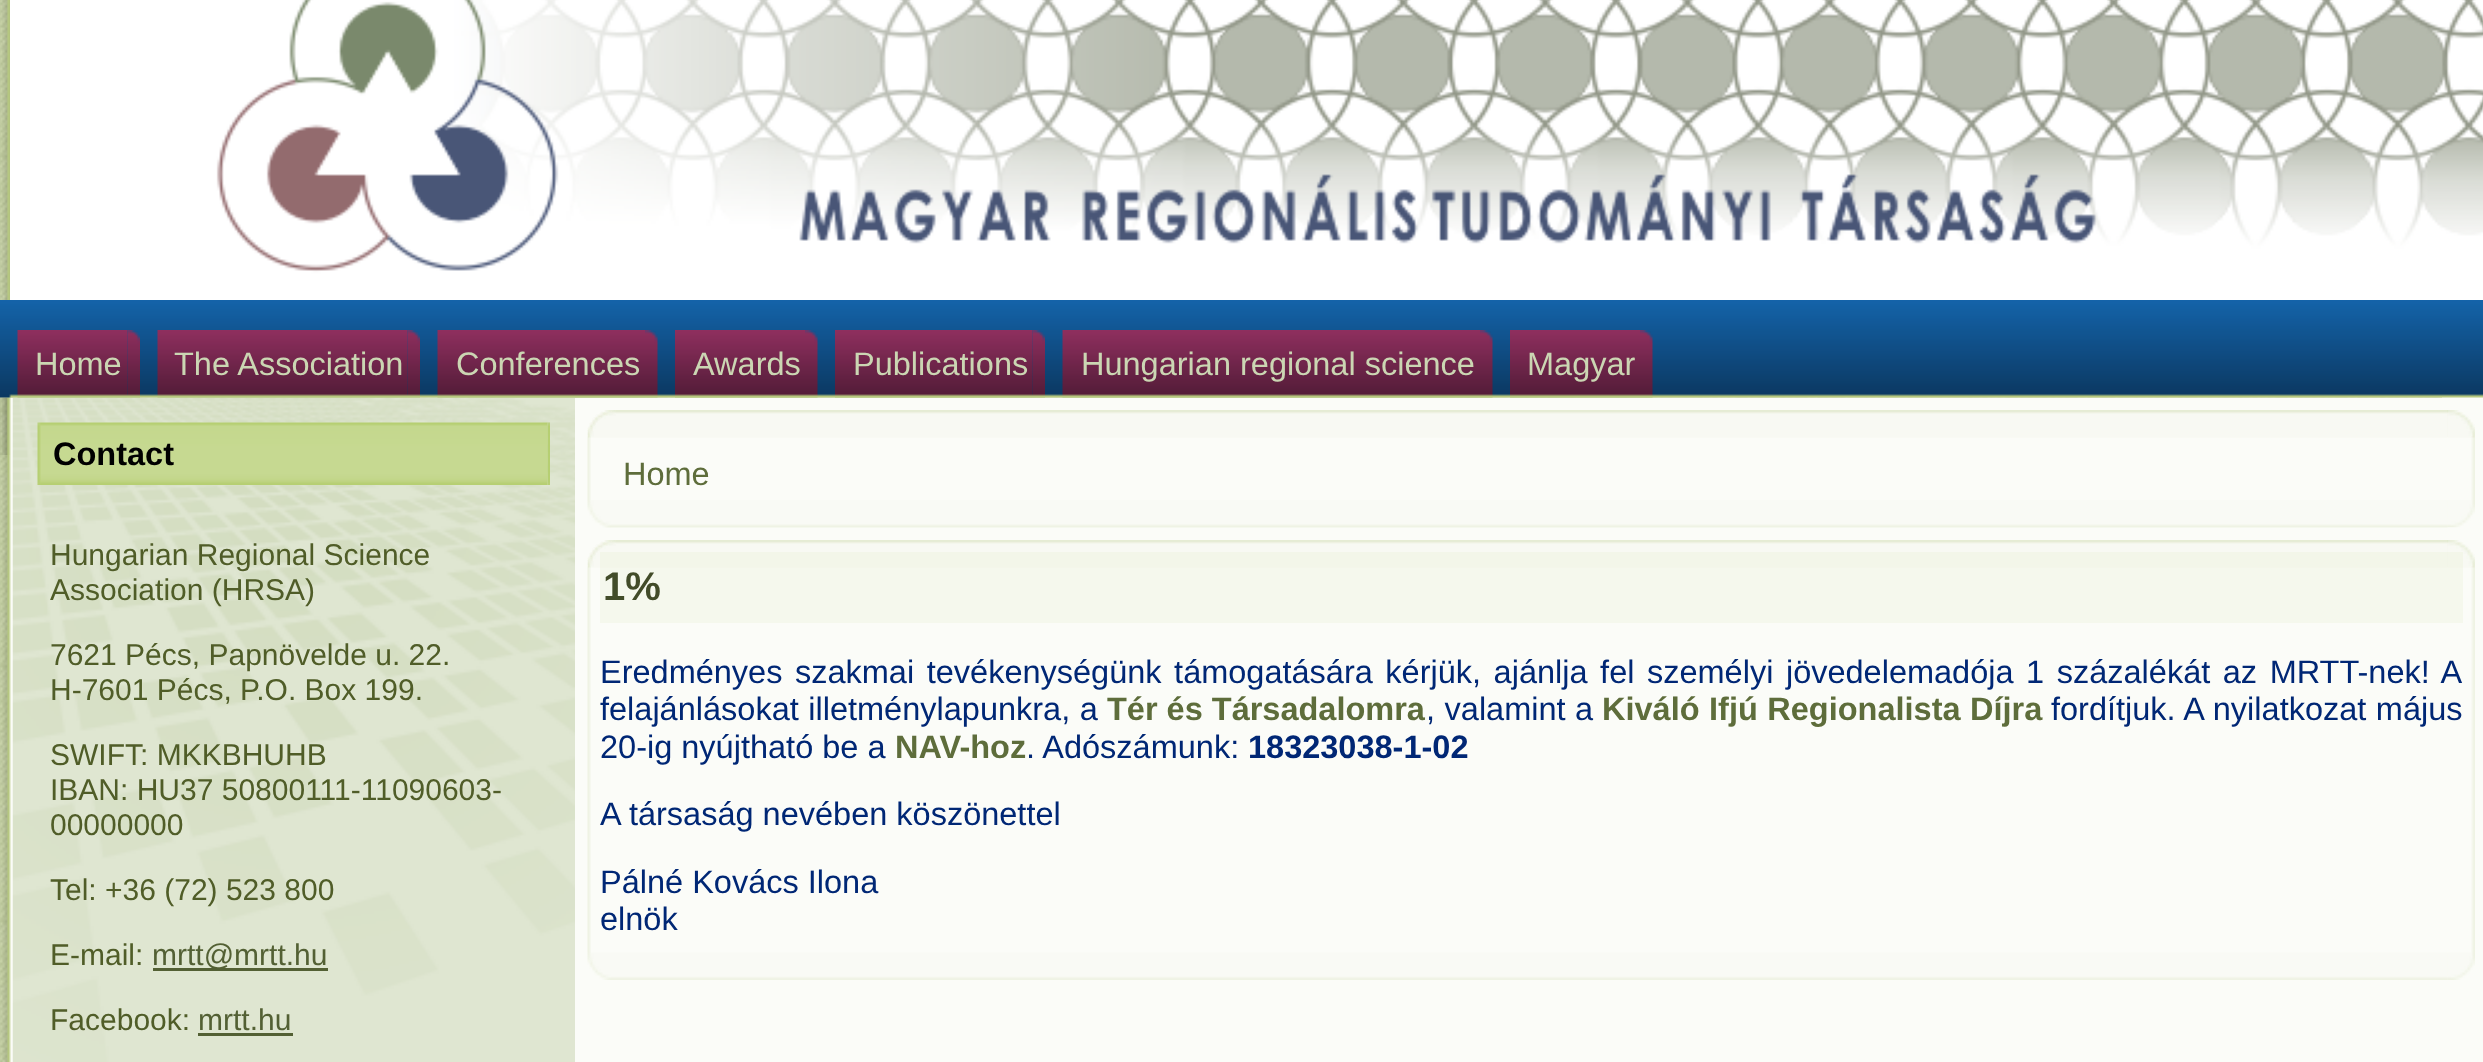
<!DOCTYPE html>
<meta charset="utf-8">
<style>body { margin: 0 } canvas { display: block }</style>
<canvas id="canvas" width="2483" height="1062"></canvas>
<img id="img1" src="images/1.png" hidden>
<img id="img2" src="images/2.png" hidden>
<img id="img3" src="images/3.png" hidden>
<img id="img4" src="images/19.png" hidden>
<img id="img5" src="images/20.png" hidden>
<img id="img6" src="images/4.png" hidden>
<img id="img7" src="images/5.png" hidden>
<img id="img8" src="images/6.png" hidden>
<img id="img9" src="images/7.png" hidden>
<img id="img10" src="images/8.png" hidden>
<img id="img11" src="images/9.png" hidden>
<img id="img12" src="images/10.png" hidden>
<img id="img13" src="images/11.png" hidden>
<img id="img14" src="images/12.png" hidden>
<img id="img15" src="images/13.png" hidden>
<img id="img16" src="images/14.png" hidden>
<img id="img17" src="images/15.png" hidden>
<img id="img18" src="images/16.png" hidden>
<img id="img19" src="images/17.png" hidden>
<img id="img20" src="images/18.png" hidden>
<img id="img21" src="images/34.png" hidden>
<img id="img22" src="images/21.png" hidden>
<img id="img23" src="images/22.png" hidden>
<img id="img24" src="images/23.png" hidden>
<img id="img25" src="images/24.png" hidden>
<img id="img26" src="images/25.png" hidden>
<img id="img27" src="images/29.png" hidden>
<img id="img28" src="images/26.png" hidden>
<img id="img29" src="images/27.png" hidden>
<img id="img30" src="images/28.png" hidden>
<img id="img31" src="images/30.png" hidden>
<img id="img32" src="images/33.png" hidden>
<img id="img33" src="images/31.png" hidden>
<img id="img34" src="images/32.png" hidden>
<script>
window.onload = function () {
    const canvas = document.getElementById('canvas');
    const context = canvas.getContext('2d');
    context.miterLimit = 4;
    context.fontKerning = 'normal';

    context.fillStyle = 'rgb(255, 255, 255)';
    context.fillRect(0, 0, 2483, 1062);
    context.drawImage(document.getElementById('img1'), 0, 0, 2442, 1062);
    context.drawImage(document.getElementById('img2'), 0, 0, 10, 300);
    context.drawImage(document.getElementById('img3'), 10, 0, 2473, 300);
    context.drawImage(document.getElementById('img4'), 0, 397, 2442, 58);
    context.drawImage(document.getElementById('img5'), 0, 397, 2442, 58);
    context.fillStyle = 'rgb(251, 252, 248)';
    context.fillRect(2442, 397, 41, 665);
    context.drawImage(document.getElementById('img6'), 0, 300, 2483, 98);
    context.drawImage(document.getElementById('img7'), 17, 330, 111, 68);
    context.drawImage(document.getElementById('img8'), 127, 330, 13, 68);
    context.drawImage(document.getElementById('img9'), 157, 330, 251, 68);
    context.drawImage(document.getElementById('img10'), 407, 330, 13, 68);
    context.drawImage(document.getElementById('img11'), 437, 330, 208, 68);
    context.drawImage(document.getElementById('img12'), 645, 330, 13, 68);
    context.drawImage(document.getElementById('img13'), 675, 330, 130, 68);
    context.drawImage(document.getElementById('img14'), 805, 330, 13, 68);
    context.drawImage(document.getElementById('img15'), 835, 330, 198, 68);
    context.drawImage(document.getElementById('img16'), 1032, 330, 13, 68);
    context.drawImage(document.getElementById('img17'), 1062, 330, 418, 68);
    context.drawImage(document.getElementById('img18'), 1480, 330, 13, 68);
    context.drawImage(document.getElementById('img19'), 1510, 330, 130, 68);
    context.drawImage(document.getElementById('img20'), 1640, 330, 13, 68);
    context.drawImage(document.getElementById('img21'), 0, 455, 2442, 607);
    context.drawImage(document.getElementById('img22'), 12, 398, 563, 664);
    context.drawImage(document.getElementById('img23'), 37, 422, 511, 63);
    context.drawImage(document.getElementById('img24'), 547, 422, 3, 63);
    context.fillStyle = 'rgb(83, 96, 52)';
    context.fillRect(153, 968, 175, 3);
    context.fillRect(198, 1033, 95, 3);
    context.drawImage(document.getElementById('img25'), 587, 410, 1861, 118);
    context.drawImage(document.getElementById('img26'), 587, 410, 1861, 28);
    context.drawImage(document.getElementById('img27'), 2471, 437, 4, 63);
    context.drawImage(document.getElementById('img28'), 2447, 410, 28, 118);
    context.drawImage(document.getElementById('img29'), 2447, 410, 28, 28);
    context.drawImage(document.getElementById('img30'), 587, 437, 4, 63);
    context.drawImage(document.getElementById('img31'), 587, 540, 1861, 440);
    context.drawImage(document.getElementById('img26'), 587, 540, 1861, 28);
    context.drawImage(document.getElementById('img32'), 2471, 567, 4, 386);
    context.drawImage(document.getElementById('img33'), 2447, 540, 28, 440);
    context.drawImage(document.getElementById('img29'), 2447, 540, 28, 28);
    context.drawImage(document.getElementById('img34'), 587, 567, 4, 386);
    context.fillStyle = 'rgba(232, 238, 211, 0.3)';
    context.fillRect(600, 552, 1863, 71);
    context.font = '32.5px Liberation Sans';
    context.fillStyle = 'rgb(203, 214, 179)';
    context.fillText('Home', 35, 375);
    context.fillText('The Association', 174, 375);
    context.fillText('Conferences', 456, 375);
    context.fillText('Awards', 693, 375);
    context.fillText('Publications', 853, 375);
    context.fillText('Hungarian regional science', 1081, 375);
    context.fillText('Magyar', 1527, 375);
    context.font = 'bold 32.5px Liberation Sans';
    context.fillStyle = 'rgb(0, 0, 0)';
    context.fillText('Contact', 53, 465);
    context.font = '30px Liberation Sans';
    context.fillStyle = 'rgb(80, 93, 40)';
    context.fillText('Hungarian Regional Science', 50, 565);
    context.fillText('Association (HRSA)', 50, 600);
    context.fillText('7621 Pécs, Papnövelde u. 22.', 50, 665);
    context.fillText('H-7601 Pécs, P.O. Box 199.', 50, 700);
    context.fillText('SWIFT: MKKBHUHB', 50, 765);
    context.fillText('IBAN: HU37 50800111-11090603-', 50, 800);
    context.fillText('00000000', 50, 835);
    context.fillText('Tel: +36 (72) 523 800', 50, 900);
    context.fillText('E-mail:', 50, 965);
    context.fillStyle = 'rgb(83, 96, 52)';
    context.fillText('mrtt@mrtt.hu', 152, 965);
    context.fillStyle = 'rgb(80, 93, 40)';
    context.fillText('Facebook:', 50, 1030);
    context.fillStyle = 'rgb(83, 96, 52)';
    context.fillText('mrtt.hu', 198, 1030);
    context.font = '32.5px Liberation Sans';
    context.fillStyle = 'rgb(94, 109, 59)';
    context.fillText('Home', 623, 485);
    context.font = 'bold 40px Liberation Sans';
    context.fillStyle = 'rgb(66, 76, 41)';
    context.fillText('1%', 603, 600);
    context.wordSpacing = '3.5px';
    context.font = '32.5px Liberation Sans';
    context.fillStyle = 'rgb(0, 39, 117)';
    context.fillText('Eredményes szakmai tevékenységünk támogatására kérjük, ajánlja fel személyi jövedelemadója 1 százalékát az MRTT-nek! A', 600, 683);
    context.wordSpacing = '0.5px';
    context.fillText('felajánlásokat illetménylapunkra, a', 600, 720);
    context.wordSpacing = '0px';
    context.font = 'bold 32.5px Liberation Sans';
    context.fillStyle = 'rgb(94, 109, 59)';
    context.fillText('Tér és Társadalomra', 1107, 720);
    context.wordSpacing = '0.5px';
    context.font = '32.5px Liberation Sans';
    context.fillStyle = 'rgb(0, 39, 117)';
    context.fillText(', valamint a', 1426, 720);
    context.font = 'bold 32.5px Liberation Sans';
    context.fillStyle = 'rgb(94, 109, 59)';
    context.fillText('Kiváló Ifjú Regionalista Díjra', 1602, 720);
    context.font = '32.5px Liberation Sans';
    context.fillStyle = 'rgb(0, 39, 117)';
    context.fillText('fordítjuk. A nyilatkozat május', 2051, 720);
    context.wordSpacing = '0px';
    context.fillText('20-ig nyújtható be a', 600, 758);
    context.font = 'bold 32.5px Liberation Sans';
    context.fillStyle = 'rgb(94, 109, 59)';
    context.fillText('NAV-hoz', 895, 758);
    context.font = '32.5px Liberation Sans';
    context.fillStyle = 'rgb(0, 39, 117)';
    context.fillText('. Adószámunk:', 1026, 758);
    context.font = 'bold 32.5px Liberation Sans';
    context.fillText('18323038-1-02', 1248, 758);
    context.font = '32.5px Liberation Sans';
    context.fillText('A társaság nevében köszönettel', 600, 825);
    context.fillText('Pálné Kovács Ilona', 600, 893);
    context.fillText('elnök', 600, 930);
};
</script>
